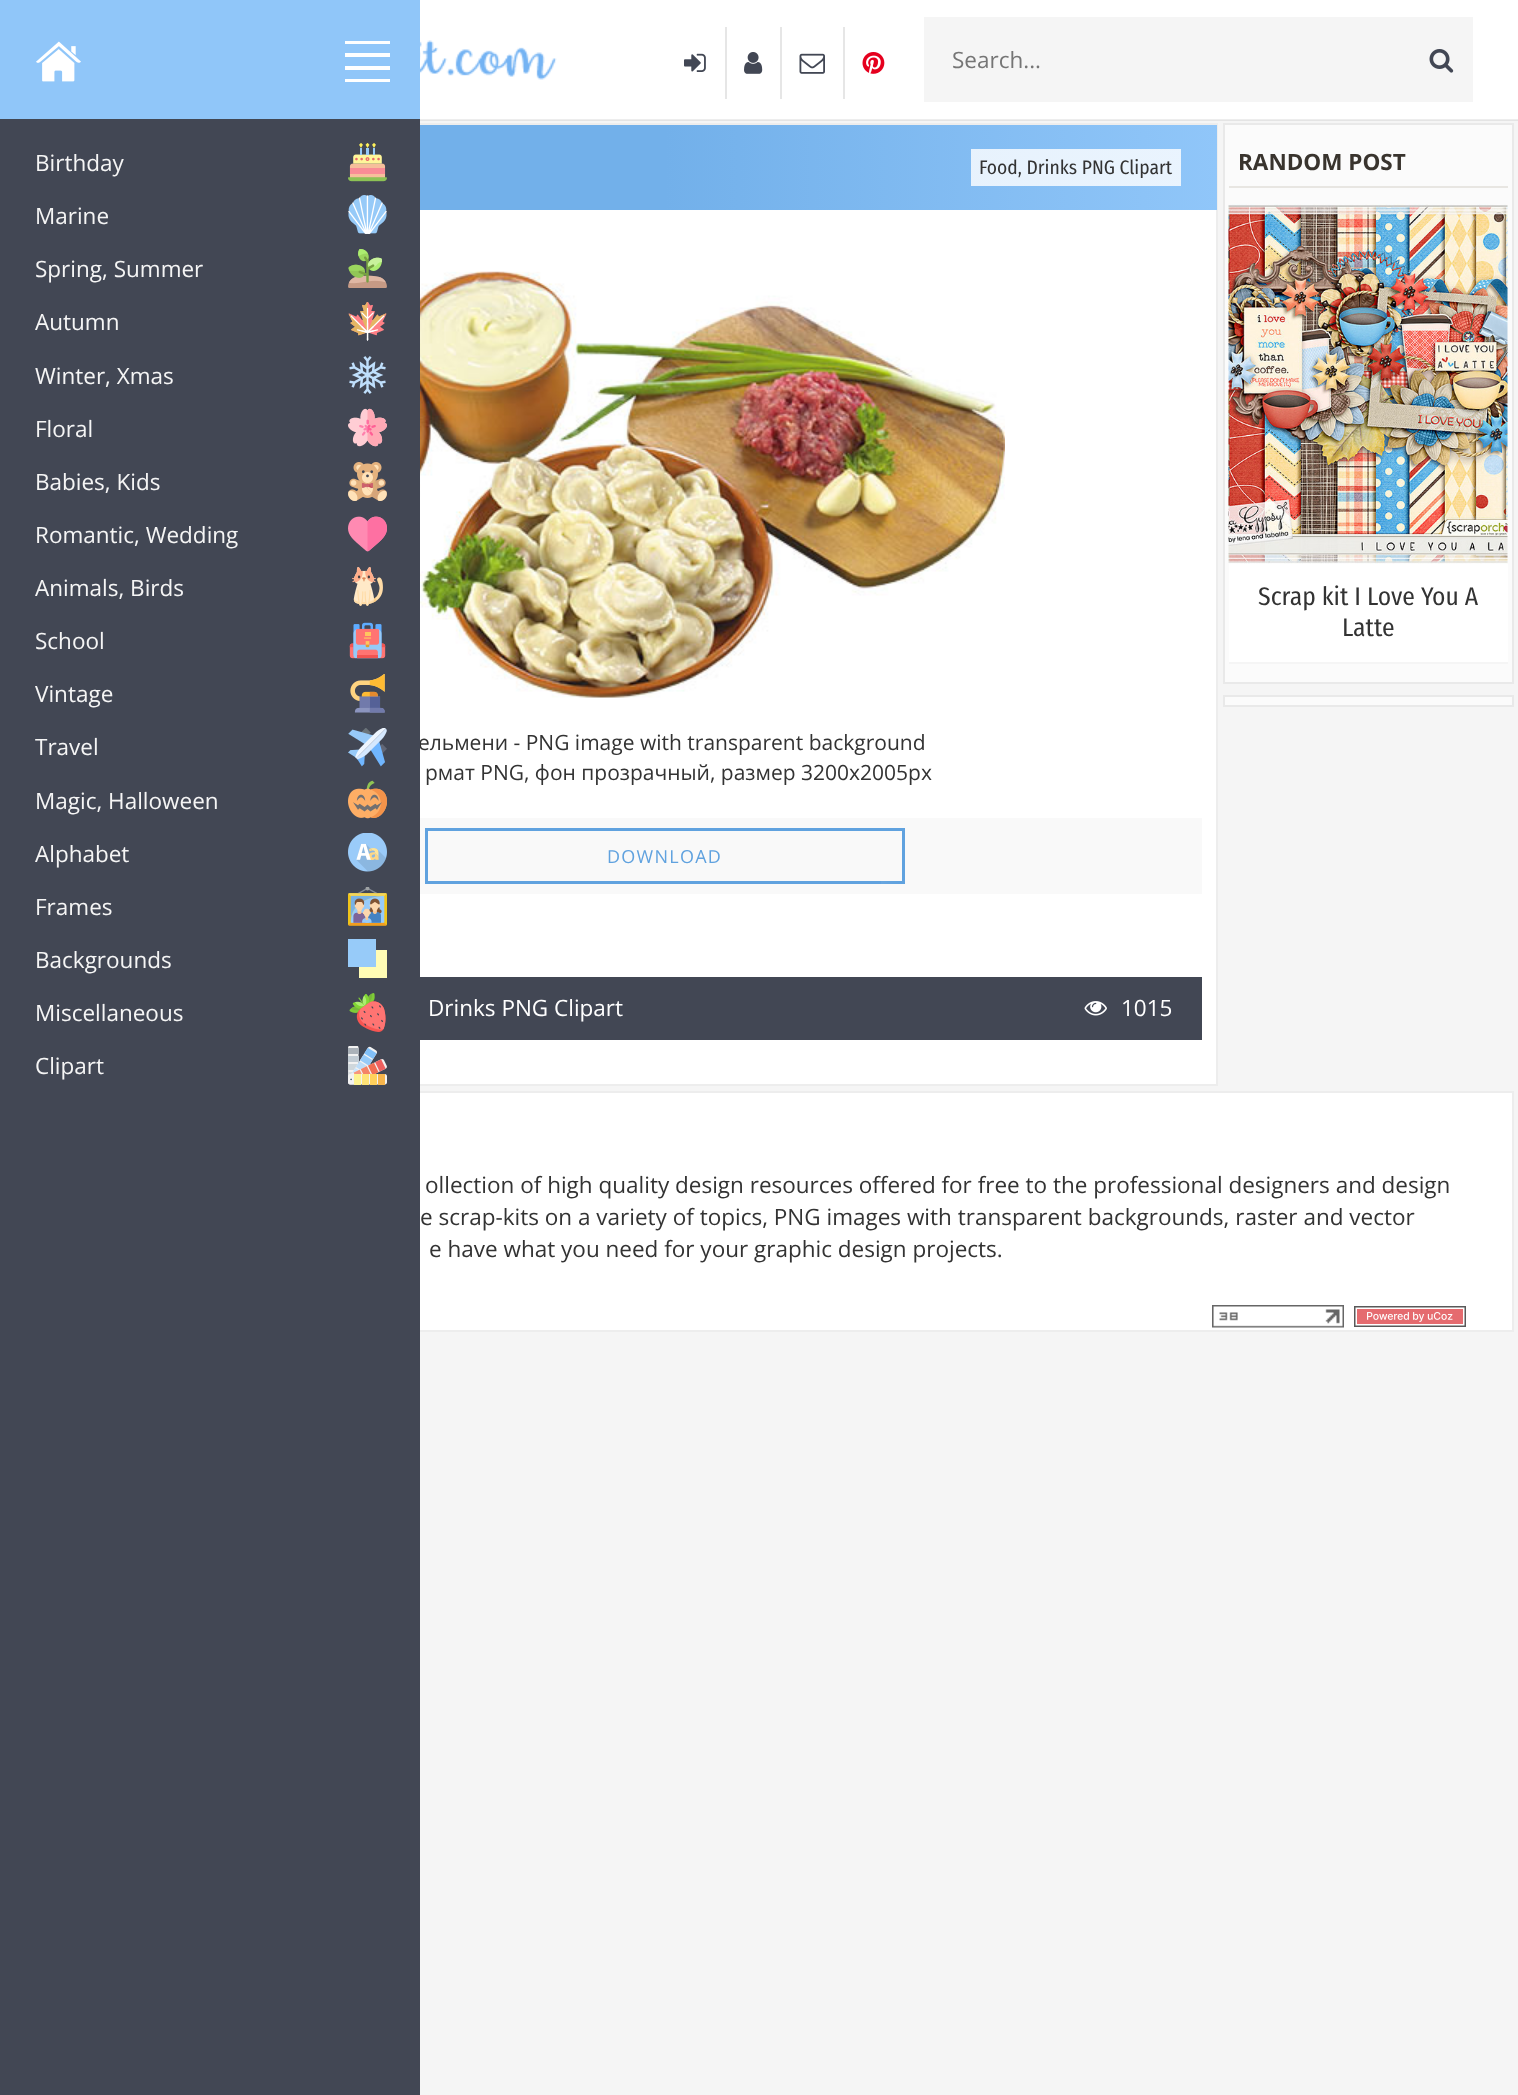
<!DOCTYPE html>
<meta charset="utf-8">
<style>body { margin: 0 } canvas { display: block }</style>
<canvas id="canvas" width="1518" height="2095"></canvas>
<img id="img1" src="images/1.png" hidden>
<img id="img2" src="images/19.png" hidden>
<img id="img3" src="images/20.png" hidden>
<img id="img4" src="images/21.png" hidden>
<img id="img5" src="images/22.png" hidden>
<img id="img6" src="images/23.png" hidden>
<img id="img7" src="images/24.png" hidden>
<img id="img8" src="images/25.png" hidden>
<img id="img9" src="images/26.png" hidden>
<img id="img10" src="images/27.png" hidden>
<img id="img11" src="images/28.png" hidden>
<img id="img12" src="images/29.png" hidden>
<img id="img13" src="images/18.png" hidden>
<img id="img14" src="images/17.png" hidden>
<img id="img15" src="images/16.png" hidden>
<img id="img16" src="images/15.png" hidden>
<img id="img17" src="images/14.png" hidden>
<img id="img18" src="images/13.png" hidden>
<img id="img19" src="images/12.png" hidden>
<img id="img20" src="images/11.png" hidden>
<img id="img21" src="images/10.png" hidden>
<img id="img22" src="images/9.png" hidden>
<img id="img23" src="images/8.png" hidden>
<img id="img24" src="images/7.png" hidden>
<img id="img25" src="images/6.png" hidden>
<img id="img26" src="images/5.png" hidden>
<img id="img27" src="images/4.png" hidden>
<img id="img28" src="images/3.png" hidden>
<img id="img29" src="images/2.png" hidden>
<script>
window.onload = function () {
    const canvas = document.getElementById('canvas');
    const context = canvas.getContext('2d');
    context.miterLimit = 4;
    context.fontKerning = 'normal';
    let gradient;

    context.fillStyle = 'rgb(245, 245, 245)';
    context.fillRect(0, 0, 1518, 2095);
    context.fillStyle = 'rgb(228, 228, 228)';
    context.fillRect(420, 120, 1098, 1);
    context.fillStyle = 'rgb(144, 198, 249)';
    context.fillRect(0, 0, 420, 119);
    context.drawImage(document.getElementById('img1'), 36, 41, 45, 41);
    context.fillStyle = 'rgb(255, 255, 255)';
    context.fillRect(345, 41, 45, 3);
    context.fillRect(345, 53, 45, 4);
    context.fillRect(345, 66, 45, 4);
    context.fillRect(345, 79, 45, 3);
    context.fillRect(420, 0, 1098, 119);
    context.fillStyle = 'rgb(237, 237, 237)';
    context.fillRect(420, 119, 1098, 1);
    context.drawImage(document.getElementById('img2'), 420, 40, 137, 40);
    context.fillStyle = 'rgb(230, 230, 230)';
    context.fillRect(725, 27, 2, 72);
    context.drawImage(document.getElementById('img3'), 684, 53, 22, 19);
    context.fillRect(780, 27, 2, 72);
    context.drawImage(document.getElementById('img4'), 744, 52, 19, 22);
    context.fillRect(843, 27, 2, 72);
    context.drawImage(document.getElementById('img5'), 799, 53, 26, 21);
    context.drawImage(document.getElementById('img6'), 862, 52, 23, 22);
    context.fillStyle = 'rgb(245, 245, 245)';
    context.fillRect(924, 17, 549, 85);
    context.drawImage(document.getElementById('img7'), 1429, 49, 25, 24);
    context.fillStyle = 'rgb(255, 255, 255)';
    context.fillRect(420, 210, 796, 874);
    context.strokeStyle = 'rgb(237, 237, 237)';
    context.lineWidth = 2;
    context.strokeRect(111, 124, 1106, 961);
    gradient = context.createLinearGradient(111, 41, 1217, 41);
    gradient.addColorStop(0.5, 'rgb(114, 176, 234)');
    gradient.addColorStop(1, 'rgb(144, 198, 249)');
    context.fillStyle = gradient;
    context.fillRect(420, 125, 797, 85);
    gradient = context.createLinearGradient(111, 41, 1217, 41);
    gradient.addColorStop(0.5, 'rgb(228, 240, 251)');
    gradient.addColorStop(1, 'rgb(234, 244, 254)');
    context.fillStyle = gradient;
    context.fillRect(971, 149, 210, 37);
    context.drawImage(document.getElementById('img8'), 420, 271, 585, 427);
    context.fillStyle = 'rgb(249, 249, 249)';
    context.fillRect(420, 818, 782, 76);
    context.strokeStyle = 'rgb(96, 162, 223)';
    context.lineWidth = 3;
    context.strokeRect(426.5, 829.5, 477, 53);
    context.fillStyle = 'rgb(66, 71, 84)';
    context.fillRect(420, 977, 782, 63);
    context.save();
    context.beginPath();
    context.rect(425, 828, 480, 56);
    context.clip();
    context.beginPath();
    context.moveTo(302, 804);
    context.lineTo(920, 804);
    context.lineTo(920, 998);
    context.lineTo(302, 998);
    context.closePath();
    context.moveTo(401, 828);
    context.lineTo(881, 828);
    context.lineTo(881, 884);
    context.lineTo(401, 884);
    context.closePath();
    context.clip('evenodd');
    context.fillStyle = 'rgb(255, 255, 255)';
    context.filter = 'blur(22.5px)';
    context.beginPath();
    context.rect(371, 873, 480, 56);
    context.fill();
    context.filter = 'none';
    context.restore();
    context.drawImage(document.getElementById('img9'), 1084, 1001, 23, 15);
    context.fillStyle = 'rgb(251, 251, 251)';
    context.beginPath();
    context.rect(1224, 124, 289, 559);
    context.fill();
    context.strokeStyle = 'rgb(233, 233, 233)';
    context.lineWidth = 2;
    context.stroke();
    context.fillStyle = 'rgb(232, 230, 226)';
    context.fillRect(1229, 186, 279, 2);
    context.drawImage(document.getElementById('img10'), 1228, 204, 280, 360);
    context.fillStyle = 'rgb(255, 255, 255)';
    context.fillRect(1229, 564, 279, 98);
    context.fillStyle = 'rgb(245, 245, 245)';
    context.fillRect(1229, 662, 279, 2);
    context.fillStyle = 'rgb(251, 251, 251)';
    context.beginPath();
    context.rect(1224, 696, 289, 10);
    context.fill();
    context.stroke();
    context.fillStyle = 'rgb(255, 255, 255)';
    context.fillRect(420, 1093, 1092, 237);
    context.strokeStyle = 'rgb(237, 237, 237)';
    context.strokeRect(111, 1092, 1402, 239);
    context.drawImage(document.getElementById('img11'), 1212, 1305, 132, 23);
    context.drawImage(document.getElementById('img12'), 1354, 1306, 112, 21);
    context.font = '22.5px Open Sans';
    context.fillStyle = 'rgb(117, 117, 117)';
    context.fillText('Search...', 952, 68);
    context.font = '19.5px Fira Sans Condensed';
    context.fillStyle = 'rgb(51, 51, 51)';
    context.fillText('Food, Drinks PNG Clipart', 979, 174);
    context.font = '21px Open Sans';
    context.fillText('ельмени - PNG image with transparent background', 418, 750);
    context.fillStyle = 'rgb(66, 71, 84)';
    context.fillRect(0, 119, 420, 1976);
    context.font = '22.5px Open Sans';
    context.fillStyle = 'rgb(245, 245, 245)';
    context.fillText('Clipart', 35, 1074);
    context.fillText('Miscellaneous', 35, 1021);
    context.fillText('Backgrounds', 35, 968);
    context.fillText('Frames', 35, 915);
    context.fillText('Alphabet', 35, 862);
    context.fillText('Magic, Halloween', 35, 809);
    context.fillText('Travel', 35, 755);
    context.fillText('Vintage', 35, 702);
    context.fillText('School', 35, 649);
    context.fillText('Animals, Birds', 35, 596);
    context.fillText('Romantic, Wedding', 35, 543);
    context.fillText('Babies, Kids', 35, 490);
    context.fillText('Floral', 35, 437);
    context.fillText('Winter, Xmas', 35, 384);
    context.fillText('Autumn', 35, 330);
    context.fillText('Spring, Summer', 35, 277);
    context.fillText('Marine', 35, 224);
    context.fillText('Birthday', 35, 171);
    context.drawImage(document.getElementById('img13'), 348, 1046, 39, 39);
    context.drawImage(document.getElementById('img14'), 349, 993, 37, 39);
    context.fillStyle = 'rgb(255, 252, 181)';
    context.beginPath();
    context.moveTo(359, 967);
    context.lineTo(359, 978);
    context.lineTo(387, 978);
    context.lineTo(387, 950);
    context.lineTo(376, 950);
    context.lineTo(376, 967);
    context.closePath();
    context.fill();
    context.fillStyle = 'rgb(151, 203, 249)';
    context.fillRect(348, 939, 28, 28);
    context.drawImage(document.getElementById('img15'), 348, 887, 39, 39);
    context.drawImage(document.getElementById('img16'), 348, 833, 39, 39);
    context.drawImage(document.getElementById('img17'), 348, 780, 39, 39);
    context.drawImage(document.getElementById('img18'), 348, 728, 39, 39);
    context.drawImage(document.getElementById('img19'), 350, 674, 35, 39);
    context.drawImage(document.getElementById('img20'), 349, 622, 37, 37);
    context.drawImage(document.getElementById('img21'), 352, 567, 31, 39);
    context.drawImage(document.getElementById('img22'), 348, 516, 39, 36);
    context.drawImage(document.getElementById('img23'), 348, 462, 39, 39);
    context.drawImage(document.getElementById('img24'), 348, 408, 39, 39);
    context.drawImage(document.getElementById('img25'), 349, 356, 37, 38);
    context.drawImage(document.getElementById('img26'), 348, 302, 39, 39);
    context.drawImage(document.getElementById('img27'), 348, 249, 39, 39);
    context.drawImage(document.getElementById('img28'), 348, 195, 39, 39);
    context.drawImage(document.getElementById('img29'), 348, 143, 39, 39);
    context.font = '21px Open Sans';
    context.fillStyle = 'rgb(51, 51, 51)';
    context.fillText('рмат PNG, фон прозрачный, размер 3200x2005px', 425, 780);
    context.letterSpacing = '1.25px';
    context.font = '18px Open Sans';
    context.fillStyle = 'rgb(96, 162, 223)';
    context.fillText('DOWNLOAD', 607, 863);
    context.letterSpacing = '0px';
    context.font = '22.5px Open Sans';
    context.fillStyle = 'rgb(255, 255, 255)';
    context.fillText('Drinks PNG Clipart', 428, 1016);
    context.fillText('1015', 1121, 1016);
    context.font = 'bold 22.5px Open Sans';
    context.fillStyle = 'rgb(57, 52, 46)';
    context.fillText('RANDOM POST', 1238, 170);
    context.font = '25.5px Fira Sans Condensed';
    context.fillStyle = 'rgb(51, 51, 51)';
    context.fillText('Scrap kit I Love You A', 1258, 605);
    context.fillText('Latte', 1342, 636);
    context.font = '22.5px Open Sans';
    context.fillText('ollection of high quality design resources offered for free to the professional designers and design', 425, 1193);
    context.fillText('e scrap-kits on a variety of topics, PNG images with transparent backgrounds, raster and vector', 420, 1225);
    context.fillText('e have what you need for your graphic design projects.', 429, 1257);
};
</script>
